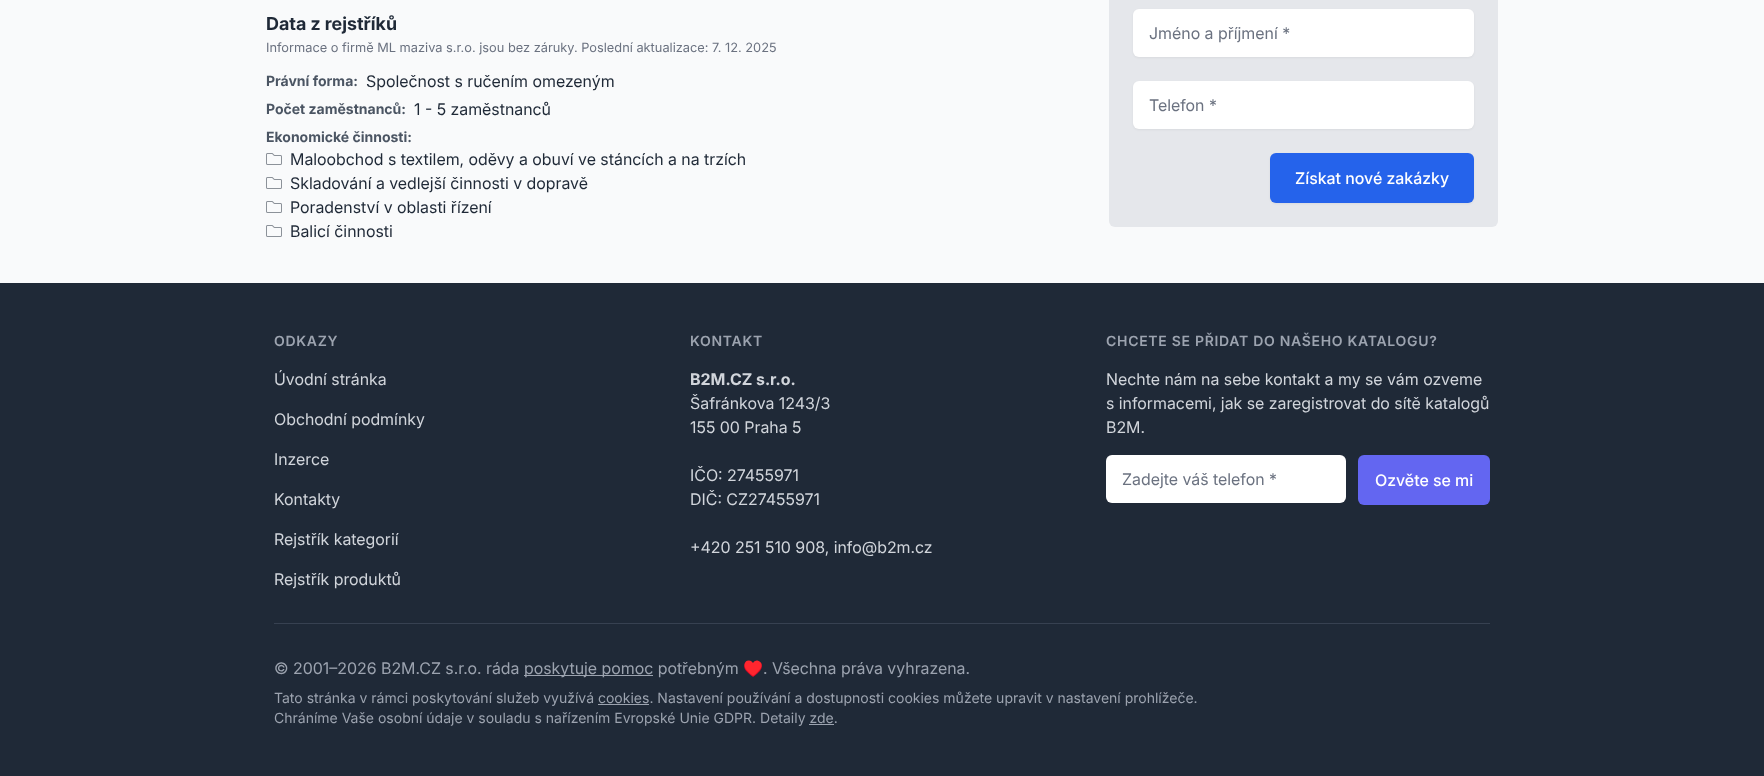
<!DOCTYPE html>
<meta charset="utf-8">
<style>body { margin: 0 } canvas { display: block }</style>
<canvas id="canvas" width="1764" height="776"></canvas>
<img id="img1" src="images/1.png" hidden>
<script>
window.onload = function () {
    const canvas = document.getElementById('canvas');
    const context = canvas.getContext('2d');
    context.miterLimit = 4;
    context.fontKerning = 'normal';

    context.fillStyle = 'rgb(31, 41, 55)';
    context.fillRect(0, 0, 1764, 776);
    context.fillStyle = 'rgb(249, 250, 251)';
    context.fillRect(0, 0, 1764, 283);
    context.drawImage(document.getElementById('img1'), 266, 153, 16, 12);
    context.drawImage(document.getElementById('img1'), 266, 177, 16, 12);
    context.drawImage(document.getElementById('img1'), 266, 201, 16, 12);
    context.drawImage(document.getElementById('img1'), 266, 225, 16, 12);
    context.fillStyle = 'rgb(229, 231, 235)';
    context.beginPath();
    context.roundRect(1109, -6, 389, 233, 6);
    context.fill();
    context.fillStyle = 'rgba(0, 0, 0, 0.05)';
    context.filter = 'blur(1px)';
    context.beginPath();
    context.roundRect(1133, 10, 341, 48, 6);
    context.fill();
    context.filter = 'none';
    context.fillStyle = 'rgb(255, 255, 255)';
    context.beginPath();
    context.roundRect(1133, 9, 341, 48, 6);
    context.fill();
    context.fillStyle = 'rgba(0, 0, 0, 0.05)';
    context.filter = 'blur(1px)';
    context.beginPath();
    context.roundRect(1133, 82, 341, 48, 6);
    context.fill();
    context.filter = 'none';
    context.fillStyle = 'rgb(255, 255, 255)';
    context.beginPath();
    context.roundRect(1133, 81, 341, 48, 6);
    context.fill();
    context.fillStyle = 'rgba(0, 0, 0, 0.05)';
    context.filter = 'blur(1px)';
    context.beginPath();
    context.roundRect(1270, 154, 204, 50, 6);
    context.fill();
    context.filter = 'none';
    context.fillStyle = 'rgb(37, 99, 235)';
    context.beginPath();
    context.roundRect(1270, 153, 204, 50, 6);
    context.fill();
    context.fillStyle = 'rgb(255, 255, 255)';
    context.beginPath();
    context.roundRect(1106, 455, 240, 48, 6);
    context.fill();
    context.fillStyle = 'rgb(99, 102, 241)';
    context.beginPath();
    context.roundRect(1358, 455, 132, 50, 6);
    context.fill();
    context.fillStyle = 'rgb(55, 65, 81)';
    context.fillRect(274, 623, 1216, 1);
    context.fillStyle = 'rgb(156, 163, 175)';
    context.fillRect(524, 675, 129, 1);
    context.fillRect(598, 704, 51, 1);
    context.fillRect(809, 724, 25, 1);
    context.font = 'bold 18px Inter';
    context.fillStyle = 'rgb(31, 41, 55)';
    context.fillText('Data z rejstříků', 266, 30);
    context.font = '12.8px Inter';
    context.fillStyle = 'rgb(107, 114, 128)';
    context.fillText('Informace o firmě ML maziva s.r.o. jsou bez záruky. Poslední aktualizace: 7. 12. 2025', 266, 52);
    context.font = 'bold 14px "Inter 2"';
    context.fillStyle = 'rgb(75, 85, 99)';
    context.fillText('Právní forma:', 266, 86);
    context.font = '16px "Inter 2"';
    context.fillStyle = 'rgb(31, 41, 55)';
    context.fillText('Společnost s ručením omezeným', 366, 87);
    context.font = 'bold 14px "Inter 2"';
    context.fillStyle = 'rgb(75, 85, 99)';
    context.fillText('Počet zaměstnanců:', 266, 114);
    context.font = '16px "Inter 2"';
    context.fillStyle = 'rgb(31, 41, 55)';
    context.fillText('1 - 5 zaměstnanců', 414, 115);
    context.font = 'bold 14px "Inter 2"';
    context.fillStyle = 'rgb(75, 85, 99)';
    context.fillText('Ekonomické činnosti:', 266, 142);
    context.font = '16px "Inter 2"';
    context.fillStyle = 'rgb(31, 41, 55)';
    context.fillText('Maloobchod s textilem, oděvy a obuví ve stáncích a na trzích', 290, 165);
    context.fillText('Skladování a vedlejší činnosti v dopravě', 290, 189);
    context.fillText('Poradenství v oblasti řízení', 290, 213);
    context.fillText('Balicí činnosti', 290, 237);
    context.fillStyle = 'rgb(107, 114, 128)';
    context.fillText('Jméno a příjmení *', 1149, 39);
    context.fillText('Telefon *', 1149, 111);
    context.font = '500 16px Inter';
    context.fillStyle = 'rgb(255, 255, 255)';
    context.fillText('Získat nové zakázky', 1295, 184);
    context.letterSpacing = '0.7px';
    context.font = '600 14px Inter';
    context.fillStyle = 'rgb(156, 163, 175)';
    context.fillText('ODKAZY', 274, 346);
    context.letterSpacing = '0px';
    context.font = '16px "Inter 2"';
    context.fillStyle = 'rgb(209, 213, 219)';
    context.fillText('Úvodní stránka', 274, 385);
    context.fillText('Obchodní podmínky', 274, 425);
    context.fillText('Inzerce', 274, 465);
    context.fillText('Kontakty', 274, 505);
    context.fillText('Rejstřík kategorií', 274, 545);
    context.fillText('Rejstřík produktů', 274, 585);
    context.letterSpacing = '0.7px';
    context.font = '600 14px Inter';
    context.fillStyle = 'rgb(156, 163, 175)';
    context.fillText('KONTAKT', 690, 346);
    context.letterSpacing = '0px';
    context.font = 'bold 16px "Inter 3"';
    context.fillStyle = 'rgb(209, 213, 219)';
    context.fillText('B2M.CZ s.r.o.', 690, 385);
    context.font = '16px "Inter 2"';
    context.fillText('Šafránkova 1243/3', 690, 409);
    context.fillText('155 00 Praha 5', 690, 433);
    context.fillText('IČO: 27455971', 690, 481);
    context.fillText('DIČ: CZ27455971', 690, 505);
    context.fillText('+420 251 510 908, info@b2m.cz', 690, 553);
    context.letterSpacing = '0.7px';
    context.font = '600 14px Inter';
    context.fillStyle = 'rgb(156, 163, 175)';
    context.fillText('CHCETE SE PŘIDAT DO NAŠEHO KATALOGU?', 1106, 346);
    context.letterSpacing = '0px';
    context.font = '16px "Inter 2"';
    context.fillStyle = 'rgb(209, 213, 219)';
    context.fillText('Nechte nám na sebe kontakt a my se vám ozveme', 1106, 385);
    context.fillText('s informacemi, jak se zaregistrovat do sítě katalogů', 1106, 409);
    context.fillText('B2M.', 1106, 433);
    context.fillStyle = 'rgb(107, 114, 128)';
    context.fillText('Zadejte váš telefon *', 1122, 485);
    context.font = '500 16px Inter';
    context.fillStyle = 'rgb(255, 255, 255)';
    context.fillText('Ozvěte se mi', 1375, 486);
    context.font = '16px "Inter 2"';
    context.fillStyle = 'rgb(156, 163, 175)';
    context.fillText('© 2001–2026 B2M.CZ s.r.o. ráda', 274, 674);
    context.fillText('poskytuje pomoc potřebným', 524, 674);
    context.font = '16px Noto Color Emoji';
    context.fillText('♥️', 743, 674);
    context.font = '16px "Inter 2"';
    context.fillText('. Všechna práva vyhrazena.', 763, 674);
    context.font = '14px Inter';
    context.fillText('Tato stránka v rámci poskytování služeb využívá cookies. Nastavení používání a dostupnosti cookies můžete upravit v nastavení prohlížeče.', 274, 703);
    context.fillText('Chráníme Vaše osobní údaje v souladu s nařízením Evropské Unie GDPR. Detaily zde.', 274, 723);
};
</script>
